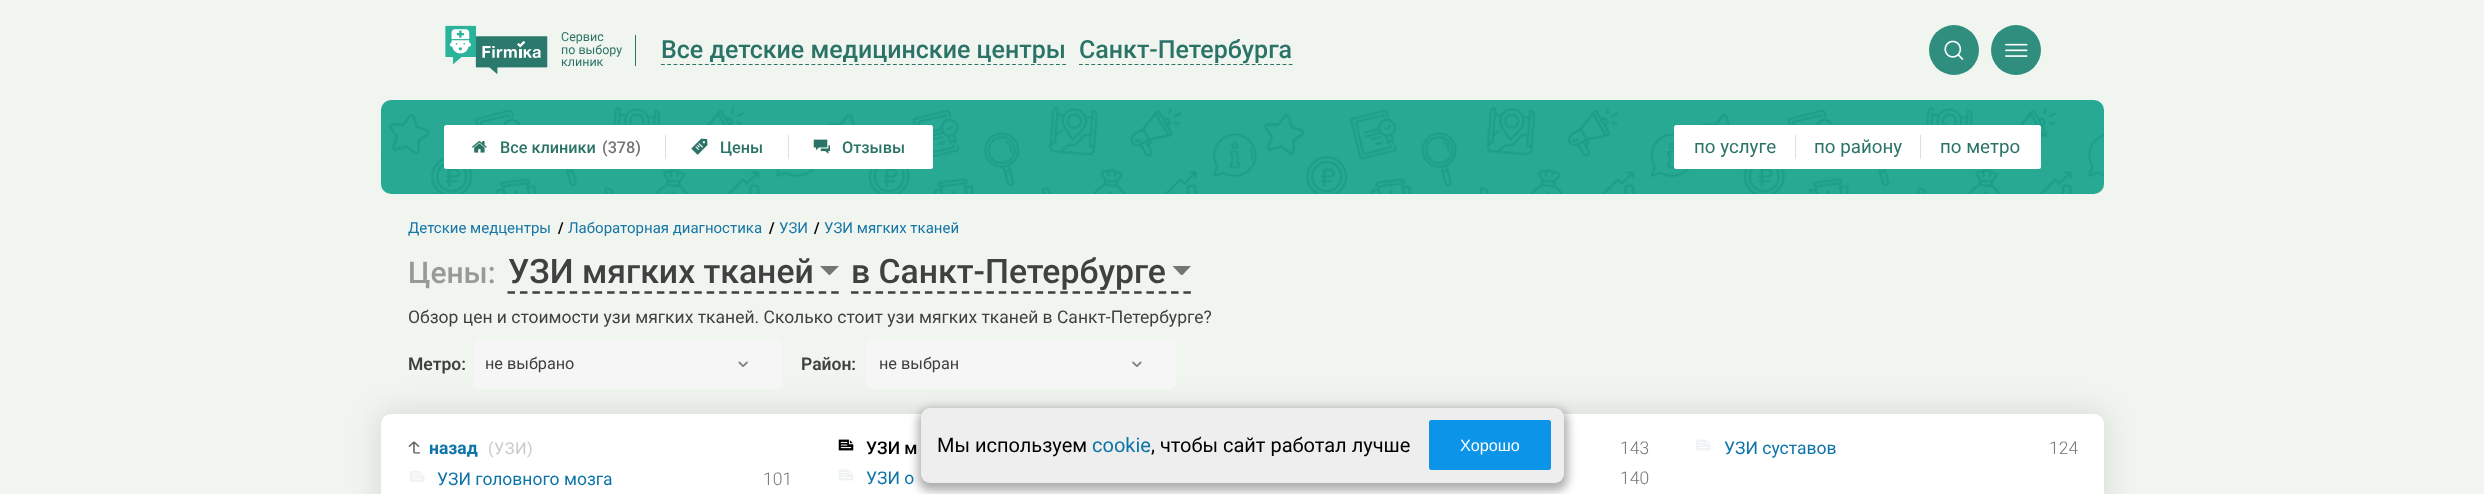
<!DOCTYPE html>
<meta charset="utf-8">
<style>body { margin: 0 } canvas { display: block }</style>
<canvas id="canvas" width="2484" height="494"></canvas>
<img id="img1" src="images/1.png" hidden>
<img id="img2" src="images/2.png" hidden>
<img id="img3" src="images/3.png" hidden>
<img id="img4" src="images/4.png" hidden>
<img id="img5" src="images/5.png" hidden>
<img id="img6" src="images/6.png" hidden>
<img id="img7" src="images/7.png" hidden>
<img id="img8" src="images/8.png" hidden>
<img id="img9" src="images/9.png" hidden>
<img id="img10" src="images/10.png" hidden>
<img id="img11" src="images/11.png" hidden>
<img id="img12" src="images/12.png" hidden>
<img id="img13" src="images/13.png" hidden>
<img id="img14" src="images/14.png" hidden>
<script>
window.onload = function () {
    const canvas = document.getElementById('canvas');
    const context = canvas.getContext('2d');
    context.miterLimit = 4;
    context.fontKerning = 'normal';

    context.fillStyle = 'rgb(241, 245, 240)';
    context.fillRect(0, 0, 2484, 494);
    context.drawImage(document.getElementById('img1'), 445, 25, 103, 49);
    context.fillStyle = 'rgb(43, 115, 103)';
    context.fillRect(635, 35, 1, 31);
    context.beginPath();
    context.moveTo(661, 64.5);
    context.lineTo(1066, 64.5);
    context.strokeStyle = 'rgb(43, 115, 103)';
    context.lineWidth = 1.2;
    context.setLineDash([3.75, 2.52]);
    context.stroke();
    context.beginPath();
    context.moveTo(1079, 64.5);
    context.lineTo(1292.5, 64.5);
    context.setLineDash([3.75, 2.42]);
    context.stroke();
    context.fillStyle = 'rgb(47, 142, 126)';
    context.beginPath();
    context.arc(1954, 50, 25, 0, 2 * Math.PI);
    context.fill();
    context.drawImage(document.getElementById('img2'), 1944, 40, 20, 20);
    context.beginPath();
    context.arc(2016, 50, 25, 0, 2 * Math.PI);
    context.fill();
    context.drawImage(document.getElementById('img3'), 2005, 43, 23, 14);
    context.fillStyle = 'rgb(29, 165, 142)';
    context.beginPath();
    context.roundRect(381, 100, 1723, 94, 10);
    context.fill();
    context.drawImage(document.getElementById('img4'), 381, 100, 1723, 94);
    context.fillStyle = 'rgb(255, 255, 255)';
    context.beginPath();
    context.roundRect(444, 125, 489, 44, 2.5);
    context.fill();
    context.drawImage(document.getElementById('img5'), 472, 141, 15, 12);
    context.fillStyle = 'rgb(213, 227, 225)';
    context.fillRect(665, 135, 1, 24);
    context.drawImage(document.getElementById('img6'), 691, 138, 17, 17);
    context.fillRect(788, 135, 1, 24);
    context.drawImage(document.getElementById('img7'), 813, 139, 17, 15);
    context.fillStyle = 'rgb(255, 255, 255)';
    context.beginPath();
    context.roundRect(1674, 125, 367, 44, 2.5);
    context.fill();
    context.fillStyle = 'rgb(213, 227, 225)';
    context.fillRect(1795, 135, 1, 24);
    context.fillRect(1920, 135, 1, 24);
    context.beginPath();
    context.moveTo(507.5, 292.5);
    context.lineTo(839, 292.5);
    context.strokeStyle = 'rgb(64, 64, 64)';
    context.lineWidth = 2.5;
    context.setLineDash([7.5, 4.95]);
    context.stroke();
    context.fillStyle = 'rgb(117, 117, 117)';
    context.beginPath();
    context.moveTo(820, 266);
    context.lineTo(839, 266);
    context.lineTo(830, 275);
    context.lineTo(829, 275);
    context.closePath();
    context.fill();
    context.beginPath();
    context.moveTo(851, 292.5);
    context.lineTo(1191, 292.5);
    context.setLineDash([7.5, 4.81]);
    context.stroke();
    context.beginPath();
    context.moveTo(1172.5, 266);
    context.lineTo(1191, 266);
    context.lineTo(1182.5, 275);
    context.lineTo(1181, 275);
    context.closePath();
    context.fill();
    context.fillStyle = 'rgba(0, 0, 0, 0.1)';
    context.filter = 'blur(15px)';
    context.beginPath();
    context.roundRect(379, 411, 1727, 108, 13);
    context.fill();
    context.filter = 'none';
    context.fillStyle = 'rgb(246, 246, 246)';
    context.beginPath();
    context.roundRect(473, 339, 310, 50, 6);
    context.fill();
    context.drawImage(document.getElementById('img8'), 738, 361, 10, 6);
    context.beginPath();
    context.roundRect(866, 339, 310, 50, 6);
    context.fill();
    context.drawImage(document.getElementById('img9'), 1132, 361, 10, 6);
    context.fillStyle = 'rgb(255, 255, 255)';
    context.beginPath();
    context.roundRect(381, 414, 1723, 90, 10);
    context.fill();
    context.drawImage(document.getElementById('img10'), 408, 441, 12, 13);
    context.drawImage(document.getElementById('img11'), 838, 439, 16, 12);
    context.drawImage(document.getElementById('img12'), 1696, 439, 15, 12);
    context.drawImage(document.getElementById('img13'), 410, 471, 15, 11);
    context.drawImage(document.getElementById('img14'), 838, 469, 16, 12);
    context.fillStyle = 'rgba(64, 64, 64, 0.42)';
    context.filter = 'blur(5px)';
    context.beginPath();
    context.roundRect(918, 409, 650, 82, 13);
    context.fill();
    context.filter = 'none';
    context.fillStyle = 'rgb(238, 238, 238)';
    context.beginPath();
    context.roundRect(921, 408, 643, 75, 9);
    context.fill();
    context.fillStyle = 'rgb(12, 148, 232)';
    context.beginPath();
    context.roundRect(1429, 420, 122, 50, 2.5);
    context.fill();
    context.font = '12.5px Roboto';
    context.fillStyle = 'rgb(43, 115, 103)';
    context.fillText('Сервис', 561, 41);
    context.fillText('по выбору', 561, 54);
    context.fillText('клиник', 561, 66);
    context.font = '500 25px Roboto';
    context.fillText('Все детские медицинские центры', 661, 58);
    context.fillText('Санкт-Петербурга', 1079, 58);
    context.font = '500 16.25px Roboto';
    context.fillText('Все клиники', 500, 153);
    context.fillStyle = 'rgb(117, 117, 117)';
    context.fillText('(378)', 602, 153);
    context.fillStyle = 'rgb(43, 115, 103)';
    context.fillText('Цены', 720, 153);
    context.fillText('Отзывы', 842, 153);
    context.font = '18.75px Roboto';
    context.fillText('по услуге', 1694, 153);
    context.fillText('по району', 1814, 153);
    context.fillText('по метро', 1940, 153);
    context.font = '15px Roboto';
    context.fillStyle = 'rgb(23, 118, 166)';
    context.fillText('Детские медцентры', 408, 233);
    context.font = 'bold 15px Roboto';
    context.fillStyle = 'rgb(0, 0, 0)';
    context.fillText('/', 558, 233);
    context.font = '15px Roboto';
    context.fillStyle = 'rgb(23, 118, 166)';
    context.fillText('Лабораторная диагностика', 568, 233);
    context.font = 'bold 15px Roboto';
    context.fillStyle = 'rgb(0, 0, 0)';
    context.fillText('/', 769, 233);
    context.font = '15px Roboto';
    context.fillStyle = 'rgb(23, 118, 166)';
    context.fillText('УЗИ', 779, 233);
    context.font = 'bold 15px Roboto';
    context.fillStyle = 'rgb(0, 0, 0)';
    context.fillText('/', 814, 233);
    context.font = '15px Roboto';
    context.fillStyle = 'rgb(23, 118, 166)';
    context.fillText('УЗИ мягких тканей', 824, 233);
    context.font = '500 30px Roboto';
    context.fillStyle = 'rgb(153, 153, 153)';
    context.fillText('Цены:', 408, 283);
    context.font = '500 33.75px Roboto';
    context.fillStyle = 'rgb(64, 64, 64)';
    context.fillText('УЗИ мягких тканей', 508, 283);
    context.fillText('в Санкт-Петербурге', 851, 283);
    context.font = '17.5px Roboto';
    context.fillText('Обзор цен и стоимости узи мягких тканей. Сколько стоит узи мягких тканей в Санкт-Петербурге?', 408, 323);
    context.font = '600 17.5px Roboto';
    context.fillText('Метро:', 408, 370);
    context.font = '16.25px Roboto';
    context.fillText('не выбрано', 485, 369);
    context.font = '600 17.5px Roboto';
    context.fillText('Район:', 801, 370);
    context.font = '16.25px Roboto';
    context.fillText('не выбран', 879, 369);
    context.font = 'bold 17.5px Roboto';
    context.fillStyle = 'rgb(12, 116, 169)';
    context.fillText('назад', 429, 454);
    context.letterSpacing = '0.5px';
    context.font = '16.25px Roboto';
    context.fillStyle = 'rgb(201, 201, 201)';
    context.fillText('(УЗИ)', 488, 454);
    context.letterSpacing = '0px';
    context.font = '500 17.5px Roboto';
    context.fillStyle = 'rgb(0, 0, 0)';
    context.fillText('УЗИ м', 866, 454);
    context.font = '300 17.5px Roboto';
    context.fillStyle = 'rgb(117, 117, 117)';
    context.fillText('143', 1620, 454);
    context.font = '17.5px Roboto';
    context.fillStyle = 'rgb(12, 116, 169)';
    context.fillText('УЗИ суставов', 1724, 454);
    context.font = '300 17.5px Roboto';
    context.fillStyle = 'rgb(117, 117, 117)';
    context.fillText('124', 2049, 454);
    context.font = '17.5px Roboto';
    context.fillStyle = 'rgb(12, 116, 169)';
    context.fillText('УЗИ головного мозга', 437, 485);
    context.font = '300 17.5px Roboto';
    context.fillStyle = 'rgb(117, 117, 117)';
    context.fillText('101', 763, 485);
    context.font = '17.5px Roboto';
    context.fillStyle = 'rgb(12, 116, 169)';
    context.fillText('УЗИ о', 866, 484);
    context.font = '300 17.5px Roboto';
    context.fillStyle = 'rgb(117, 117, 117)';
    context.fillText('140', 1620, 484);
    context.font = '20px Roboto';
    context.fillStyle = 'rgb(0, 0, 0)';
    context.fillText('Мы используем', 937, 452);
    context.fillStyle = 'rgb(12, 116, 169)';
    context.fillText('cookie', 1092, 452);
    context.fillStyle = 'rgb(0, 0, 0)';
    context.fillText(', чтобы сайт работал лучше', 1151, 452);
    context.font = '16.25px Liberation Sans';
    context.fillStyle = 'rgb(255, 255, 255)';
    context.fillText('Хорошо', 1460, 451);
};
</script>
